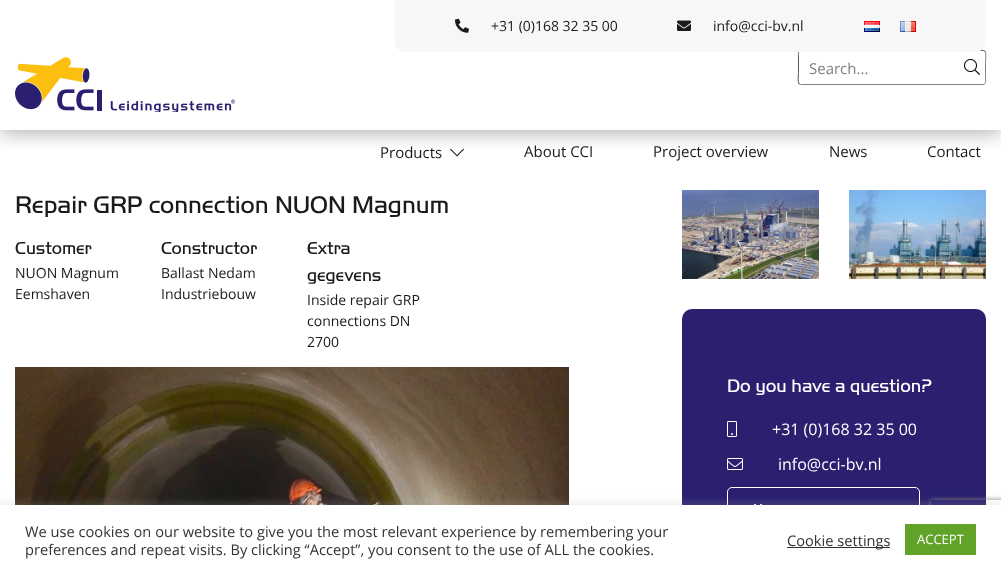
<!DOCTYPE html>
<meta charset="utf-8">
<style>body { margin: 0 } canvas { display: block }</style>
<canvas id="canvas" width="1001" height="574"></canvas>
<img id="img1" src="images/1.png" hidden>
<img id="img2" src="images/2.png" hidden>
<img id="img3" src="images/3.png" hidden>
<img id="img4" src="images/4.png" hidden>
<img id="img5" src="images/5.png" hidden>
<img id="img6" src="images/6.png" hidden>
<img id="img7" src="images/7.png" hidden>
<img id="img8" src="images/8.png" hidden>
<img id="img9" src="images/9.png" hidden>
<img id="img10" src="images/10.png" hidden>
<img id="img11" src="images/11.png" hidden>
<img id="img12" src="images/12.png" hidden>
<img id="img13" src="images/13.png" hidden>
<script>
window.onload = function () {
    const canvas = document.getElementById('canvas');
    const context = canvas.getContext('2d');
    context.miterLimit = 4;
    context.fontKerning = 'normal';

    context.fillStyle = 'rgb(255, 255, 255)';
    context.fillRect(0, 0, 1001, 574);
    context.save();
    context.beginPath();
    context.rect(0, 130, 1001, 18);
    context.clip();
    context.fillStyle = 'rgba(0, 0, 0, 0.4)';
    context.filter = 'blur(11px)';
    context.beginPath();
    context.rect(0, 0, 1001, 130);
    context.fill();
    context.filter = 'none';
    context.restore();
    context.beginPath();
    context.moveTo(985, 51);
    context.bezierCurveTo(986.5, 53, 985.5, 60.5, 985.5, 62.5);
    context.lineTo(985.5, 77);
    context.bezierCurveTo(985.5, 79, 986.5, 84.5, 983, 84.5);
    context.lineTo(800.5, 84.5);
    context.lineTo(799, 84);
    context.strokeStyle = 'rgb(128, 128, 128)';
    context.stroke();
    context.beginPath();
    context.moveTo(799, 84);
    context.bezierCurveTo(797.5, 82, 798.5, 74.5, 798.5, 72.5);
    context.lineTo(798.5, 58);
    context.bezierCurveTo(798.5, 56, 797.5, 50.5, 801, 50.5);
    context.lineTo(983.5, 50.5);
    context.lineTo(985, 51);
    context.strokeStyle = 'rgb(85, 85, 85)';
    context.stroke();
    context.fillStyle = 'rgb(247, 247, 247)';
    context.beginPath();
    context.roundRect(395, 0, 591, 52, [0, 0, 10, 10]);
    context.fill();
    context.drawImage(document.getElementById('img1'), 455, 18, 14, 15);
    context.drawImage(document.getElementById('img2'), 677, 20, 14, 11);
    context.drawImage(document.getElementById('img3'), 864, 21, 16, 11);
    context.drawImage(document.getElementById('img4'), 900, 21, 16, 11);
    context.drawImage(document.getElementById('img5'), 15, 57, 220, 55);
    context.drawImage(document.getElementById('img6'), 964, 59, 16, 16);
    context.drawImage(document.getElementById('img7'), 450, 148, 14, 9);
    context.drawImage(document.getElementById('img8'), 15, 367, 554, 138);
    context.drawImage(document.getElementById('img9'), 682, 190, 137, 89);
    context.drawImage(document.getElementById('img10'), 849, 190, 137, 89);
    context.fillStyle = 'rgb(42, 32, 111)';
    context.beginPath();
    context.roundRect(682, 309, 304, 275, 10);
    context.fill();
    context.drawImage(document.getElementById('img11'), 727, 421, 10, 16);
    context.drawImage(document.getElementById('img12'), 727, 458, 16, 12);
    context.beginPath();
    context.roundRect(727.5, 487.5, 192, 49, 4.5);
    context.strokeStyle = 'rgb(255, 255, 255)';
    context.stroke();
    context.drawImage(document.getElementById('img13'), 754, 504, 8, 1);
    context.save();
    context.beginPath();
    context.moveTo(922, 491);
    context.lineTo(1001, 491);
    context.lineTo(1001, 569);
    context.lineTo(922, 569);
    context.closePath();
    context.moveTo(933, 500);
    context.lineTo(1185, 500);
    context.bezierCurveTo(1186, 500, 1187, 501, 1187, 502);
    context.lineTo(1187, 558);
    context.bezierCurveTo(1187, 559, 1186, 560, 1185, 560);
    context.lineTo(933, 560);
    context.bezierCurveTo(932, 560, 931, 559, 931, 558);
    context.lineTo(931, 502);
    context.bezierCurveTo(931, 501, 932, 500, 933, 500);
    context.closePath();
    context.clip('evenodd');
    context.fillStyle = 'rgb(128, 128, 128)';
    context.filter = 'blur(2.5px)';
    context.beginPath();
    context.roundRect(931, 500, 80, 60, 2);
    context.fill();
    context.filter = 'none';
    context.restore();
    context.fillStyle = 'rgba(172, 171, 171, 0.3)';
    context.filter = 'blur(5px)';
    context.beginPath();
    context.rect(0, 504, 1001, 69);
    context.fill();
    context.filter = 'none';
    context.fillStyle = 'rgb(255, 255, 255)';
    context.fillRect(0, 505, 1001, 69);
    context.fillStyle = 'rgb(51, 51, 51)';
    context.fillRect(787, 547, 103, 1);
    context.fillStyle = 'rgb(97, 162, 41)';
    context.fillRect(905, 524, 71, 31);
    context.font = '14px Open Sans';
    context.fillStyle = 'rgb(26, 26, 26)';
    context.fillText('+31 (0)168 32 35 00', 491, 31);
    context.fillText('info@cci-bv.nl', 713, 31);
    context.font = '15px Open Sans';
    context.fillStyle = 'rgb(128, 128, 128)';
    context.fillText('Search...', 809, 74);
    context.fillStyle = 'rgb(26, 26, 26)';
    context.fillText('Products', 380, 158);
    context.fillText('About CCI', 524, 157);
    context.fillText('Project overview', 653, 157);
    context.fillText('News', 829, 157);
    context.fillText('Contact', 927, 157);
    context.font = '300 25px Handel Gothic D';
    context.fillText('Repair GRP connection NUON Magnum', 15, 213);
    context.font = '300 18px Handel Gothic D';
    context.fillText('Customer', 15, 254);
    context.font = '14px Open Sans';
    context.fillText('NUON Magnum', 15, 278);
    context.fillText('Eemshaven', 15, 299);
    context.font = '300 18px Handel Gothic D';
    context.fillText('Constructor', 161, 254);
    context.font = '14px Open Sans';
    context.fillText('Ballast Nedam', 161, 278);
    context.fillText('Industriebouw', 161, 299);
    context.font = '300 18px Handel Gothic D';
    context.fillText('Extra', 307, 254);
    context.fillText('gegevens', 307, 281);
    context.font = '14px Open Sans';
    context.fillText('Inside repair GRP', 307, 305);
    context.fillText('connections DN', 307, 326);
    context.fillText('2700', 307, 347);
    context.font = '300 20px Handel Gothic D';
    context.fillStyle = 'rgb(132, 131, 146)';
    context.fillText('View photo', 700, 240);
    context.font = '300 18.75px Handel Gothic D';
    context.fillStyle = 'rgb(255, 255, 255)';
    context.fillText('Do you have a question?', 727, 392);
    context.font = '16px Open Sans';
    context.fillText('+31 (0)168 32 35 00', 772, 435);
    context.fillText('info@cci-bv.nl', 778, 470);
    context.font = '14.65px Open Sans';
    context.fillStyle = 'rgb(51, 51, 51)';
    context.fillText('We use cookies on our website to give you the most relevant experience by remembering your', 25, 537);
    context.fillText('preferences and repeat visits. By clicking “Accept”, you consent to the use of ALL the cookies.', 25, 555);
    context.fillText('Cookie settings', 787, 546);
    context.font = '13px Open Sans';
    context.fillStyle = 'rgb(255, 255, 255)';
    context.fillText('ACCEPT', 917, 544);
};
</script>
